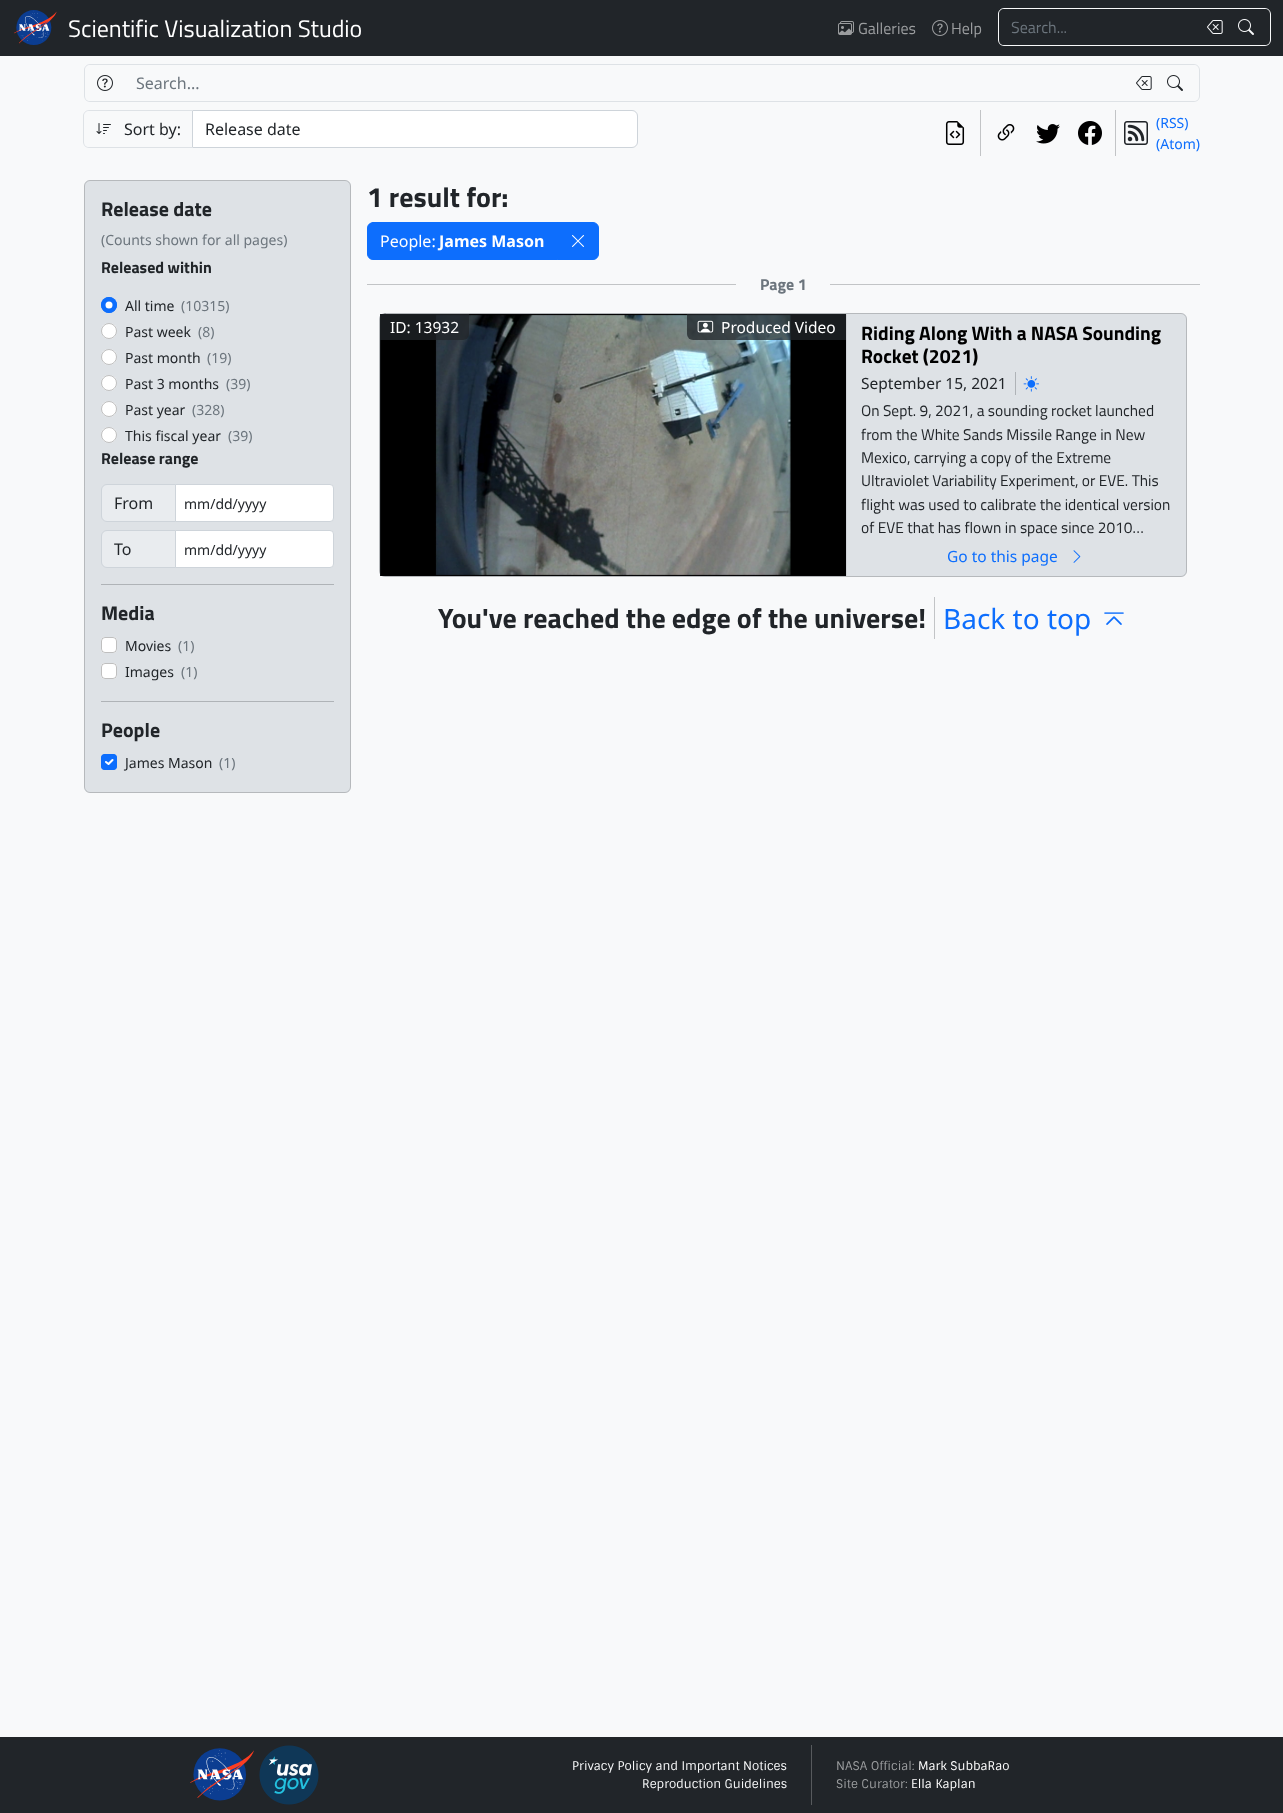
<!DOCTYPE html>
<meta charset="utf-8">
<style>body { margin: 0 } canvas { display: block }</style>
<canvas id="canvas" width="1283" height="1813"></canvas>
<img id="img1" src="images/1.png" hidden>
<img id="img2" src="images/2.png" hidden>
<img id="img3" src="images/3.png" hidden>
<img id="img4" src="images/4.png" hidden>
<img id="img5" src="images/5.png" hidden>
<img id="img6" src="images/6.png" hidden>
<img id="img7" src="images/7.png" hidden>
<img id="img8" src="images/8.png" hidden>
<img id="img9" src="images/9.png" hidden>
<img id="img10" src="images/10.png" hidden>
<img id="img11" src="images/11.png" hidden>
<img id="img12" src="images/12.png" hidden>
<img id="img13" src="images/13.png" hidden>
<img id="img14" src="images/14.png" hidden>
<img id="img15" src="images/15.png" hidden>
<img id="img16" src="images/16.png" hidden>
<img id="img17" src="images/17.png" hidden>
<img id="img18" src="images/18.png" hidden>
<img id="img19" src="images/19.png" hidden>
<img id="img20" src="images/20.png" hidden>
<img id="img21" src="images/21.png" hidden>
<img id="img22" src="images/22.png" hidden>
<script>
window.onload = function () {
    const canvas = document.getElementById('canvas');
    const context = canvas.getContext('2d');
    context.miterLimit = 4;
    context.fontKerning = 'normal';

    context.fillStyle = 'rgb(248, 249, 250)';
    context.fillRect(0, 0, 1283, 1813);
    context.fillStyle = 'rgb(33, 37, 41)';
    context.fillRect(0, 0, 1283, 56);
    context.drawImage(document.getElementById('img1'), 14, 10, 43, 35);
    context.drawImage(document.getElementById('img2'), 838, 21, 16, 14);
    context.drawImage(document.getElementById('img3'), 932, 20, 16, 16);
    context.fillStyle = 'rgb(248, 249, 250)';
    context.beginPath();
    context.moveTo(1004, 8);
    context.lineTo(1196, 8);
    context.lineTo(1196, 46);
    context.lineTo(1004, 46);
    context.bezierCurveTo(1001, 46, 998, 43, 998, 40);
    context.lineTo(998, 14);
    context.bezierCurveTo(998, 11, 1001, 8, 1004, 8);
    context.closePath();
    context.moveTo(1004, 9);
    context.lineTo(1196, 9);
    context.lineTo(1196, 45);
    context.lineTo(1004, 45);
    context.bezierCurveTo(1001, 45, 999, 43, 999, 40);
    context.lineTo(999, 14);
    context.bezierCurveTo(999, 11, 1001, 9, 1004, 9);
    context.closePath();
    context.fill('evenodd');
    context.fillRect(1195, 8, 32, 1);
    context.fillRect(1195, 45, 32, 1);
    context.drawImage(document.getElementById('img4'), 1207, 20, 16, 14);
    context.fillStyle = 'rgb(33, 37, 41)';
    context.beginPath();
    context.roundRect(1226, 8, 45, 38, [0, 6, 6, 0]);
    context.fill();
    context.fillStyle = 'rgb(248, 249, 250)';
    context.beginPath();
    context.moveTo(1226, 8);
    context.lineTo(1265, 8);
    context.bezierCurveTo(1268, 8, 1271, 11, 1271, 14);
    context.lineTo(1271, 40);
    context.bezierCurveTo(1271, 43, 1268, 46, 1265, 46);
    context.lineTo(1226, 46);
    context.closePath();
    context.moveTo(1226, 9);
    context.lineTo(1265, 9);
    context.bezierCurveTo(1268, 9, 1270, 11, 1270, 14);
    context.lineTo(1270, 40);
    context.bezierCurveTo(1270, 43, 1268, 45, 1265, 45);
    context.lineTo(1226, 45);
    context.closePath();
    context.fill('evenodd');
    context.drawImage(document.getElementById('img5'), 1238, 19, 16, 16);
    context.fillStyle = 'rgb(222, 226, 230)';
    context.fillRect(124, 64, 1032, 1);
    context.fillRect(124, 101, 1032, 1);
    context.beginPath();
    context.moveTo(90, 64);
    context.lineTo(125, 64);
    context.lineTo(125, 102);
    context.lineTo(90, 102);
    context.bezierCurveTo(87, 102, 84, 99, 84, 96);
    context.lineTo(84, 70);
    context.bezierCurveTo(84, 67, 87, 64, 90, 64);
    context.closePath();
    context.moveTo(90, 65);
    context.lineTo(125, 65);
    context.lineTo(125, 101);
    context.lineTo(90, 101);
    context.bezierCurveTo(87, 101, 85, 99, 85, 96);
    context.lineTo(85, 70);
    context.bezierCurveTo(85, 67, 87, 65, 90, 65);
    context.closePath();
    context.fill('evenodd');
    context.drawImage(document.getElementById('img6'), 97, 75, 16, 16);
    context.drawImage(document.getElementById('img7'), 1136, 76, 16, 14);
    context.beginPath();
    context.moveTo(1155, 64);
    context.lineTo(1194, 64);
    context.bezierCurveTo(1197, 64, 1200, 67, 1200, 70);
    context.lineTo(1200, 96);
    context.bezierCurveTo(1200, 99, 1197, 102, 1194, 102);
    context.lineTo(1155, 102);
    context.closePath();
    context.moveTo(1155, 65);
    context.lineTo(1194, 65);
    context.bezierCurveTo(1197, 65, 1199, 67, 1199, 70);
    context.lineTo(1199, 96);
    context.bezierCurveTo(1199, 99, 1197, 101, 1194, 101);
    context.lineTo(1155, 101);
    context.closePath();
    context.fill('evenodd');
    context.drawImage(document.getElementById('img8'), 1167, 75, 16, 16);
    context.fillStyle = 'rgb(255, 255, 255)';
    context.beginPath();
    context.roundRect(192.5, 110.5, 445, 37, [0, 5.5, 5.5, 0]);
    context.fill();
    context.strokeStyle = 'rgb(206, 212, 218)';
    context.stroke();
    context.fillStyle = 'rgb(222, 226, 230)';
    context.beginPath();
    context.moveTo(89, 110);
    context.lineTo(193, 110);
    context.lineTo(193, 148);
    context.lineTo(89, 148);
    context.bezierCurveTo(86, 148, 83, 145, 83, 142);
    context.lineTo(83, 116);
    context.bezierCurveTo(83, 113, 86, 110, 89, 110);
    context.closePath();
    context.moveTo(89, 111);
    context.lineTo(193, 111);
    context.lineTo(193, 147);
    context.lineTo(89, 147);
    context.bezierCurveTo(86, 147, 84, 145, 84, 142);
    context.lineTo(84, 116);
    context.bezierCurveTo(84, 113, 86, 111, 89, 111);
    context.closePath();
    context.fill('evenodd');
    context.drawImage(document.getElementById('img9'), 96, 123, 15, 11);
    context.drawImage(document.getElementById('img10'), 945, 121, 20, 24);
    context.fillStyle = 'rgb(194, 196, 198)';
    context.fillRect(980, 110, 1, 46);
    context.drawImage(document.getElementById('img11'), 997, 124, 18, 17);
    context.drawImage(document.getElementById('img12'), 1036, 124, 24, 20);
    context.drawImage(document.getElementById('img13'), 1078, 121, 24, 24);
    context.fillRect(1115, 110, 1, 46);
    context.drawImage(document.getElementById('img14'), 1124, 121, 24, 24);
    context.fillStyle = 'rgb(222, 226, 230)';
    context.beginPath();
    context.roundRect(84, 180, 267, 613, 6);
    context.fill();
    context.beginPath();
    context.roundRect(84.5, 180.5, 266, 612, 5.5);
    context.strokeStyle = 'rgba(0, 0, 0, 0.18)';
    context.stroke();
    context.fillStyle = 'rgb(13, 110, 253)';
    context.beginPath();
    context.arc(109, 305, 8, 0, 2 * Math.PI);
    context.fill();
    context.fillStyle = 'rgb(255, 255, 255)';
    context.beginPath();
    context.arc(109, 305, 3.5, 0, 2 * Math.PI);
    context.fill();
    context.beginPath();
    context.arc(109, 305, 7.5, 0, 2 * Math.PI);
    context.strokeStyle = 'rgb(13, 110, 253)';
    context.stroke();
    context.beginPath();
    context.arc(109, 331, 8, 0, 2 * Math.PI);
    context.fill();
    context.beginPath();
    context.arc(109, 331, 7.5, 0, 2 * Math.PI);
    context.strokeStyle = 'rgba(0, 0, 0, 0.25)';
    context.stroke();
    context.beginPath();
    context.arc(109, 357, 8, 0, 2 * Math.PI);
    context.fill();
    context.beginPath();
    context.arc(109, 357, 7.5, 0, 2 * Math.PI);
    context.stroke();
    context.beginPath();
    context.arc(109, 383, 8, 0, 2 * Math.PI);
    context.fill();
    context.beginPath();
    context.arc(109, 383, 7.5, 0, 2 * Math.PI);
    context.stroke();
    context.beginPath();
    context.arc(109, 409, 8, 0, 2 * Math.PI);
    context.fill();
    context.beginPath();
    context.arc(109, 409, 7.5, 0, 2 * Math.PI);
    context.stroke();
    context.beginPath();
    context.arc(109, 435, 8, 0, 2 * Math.PI);
    context.fill();
    context.beginPath();
    context.arc(109, 435, 7.5, 0, 2 * Math.PI);
    context.stroke();
    context.fillStyle = 'rgb(233, 236, 239)';
    context.beginPath();
    context.roundRect(101.5, 484.5, 74, 37, [5.5, 0, 0, 5.5]);
    context.fill();
    context.strokeStyle = 'rgb(206, 212, 218)';
    context.stroke();
    context.fillStyle = 'rgb(255, 255, 255)';
    context.beginPath();
    context.roundRect(175.5, 484.5, 158, 37, [0, 3.5, 3.5, 0]);
    context.fill();
    context.stroke();
    context.fillStyle = 'rgb(233, 236, 239)';
    context.beginPath();
    context.roundRect(101.5, 530.5, 74, 37, [5.5, 0, 0, 5.5]);
    context.fill();
    context.stroke();
    context.fillStyle = 'rgb(255, 255, 255)';
    context.beginPath();
    context.roundRect(175.5, 530.5, 158, 37, [0, 3.5, 3.5, 0]);
    context.fill();
    context.stroke();
    context.fillStyle = 'rgb(175, 179, 183)';
    context.fillRect(101, 584, 233, 1);
    context.fillStyle = 'rgb(255, 255, 255)';
    context.beginPath();
    context.roundRect(101, 637, 16, 16, 4);
    context.fill();
    context.beginPath();
    context.roundRect(101.5, 637.5, 15, 15, 3.5);
    context.strokeStyle = 'rgba(0, 0, 0, 0.25)';
    context.stroke();
    context.beginPath();
    context.roundRect(101, 663, 16, 16, 4);
    context.fill();
    context.beginPath();
    context.roundRect(101.5, 663.5, 15, 15, 3.5);
    context.stroke();
    context.fillStyle = 'rgb(175, 179, 183)';
    context.fillRect(101, 701, 233, 1);
    context.fillStyle = 'rgb(13, 110, 253)';
    context.beginPath();
    context.roundRect(101, 754, 16, 16, 4);
    context.fill();
    context.beginPath();
    context.moveTo(106, 762);
    context.lineTo(108.5, 764);
    context.lineTo(112.5, 760);
    context.strokeStyle = 'rgb(255, 255, 255)';
    context.lineWidth = 2.1;
    context.lineCap = 'round';
    context.lineJoin = 'round';
    context.stroke();
    context.beginPath();
    context.roundRect(101.5, 754.5, 15, 15, 3.5);
    context.strokeStyle = 'rgb(13, 110, 253)';
    context.lineWidth = 1;
    context.lineJoin = 'miter';
    context.stroke();
    context.beginPath();
    context.roundRect(367.5, 222.5, 190, 37, [5.5, 0, 0, 5.5]);
    context.fill();
    context.stroke();
    context.beginPath();
    context.roundRect(557.5, 222.5, 41, 37, [0, 5.5, 5.5, 0]);
    context.fill();
    context.stroke();
    context.drawImage(document.getElementById('img15'), 572, 235, 12, 12);
    context.fillStyle = 'rgb(194, 196, 198)';
    context.fillRect(367, 284, 369, 1);
    context.fillRect(830, 284, 370, 1);
    context.fillStyle = 'rgb(222, 226, 230)';
    context.beginPath();
    context.roundRect(379, 313, 808, 264, 6);
    context.fill();
    context.beginPath();
    context.roundRect(379.5, 313.5, 807, 263, 5.5);
    context.strokeStyle = 'rgba(0, 0, 0, 0.18)';
    context.stroke();
    context.fillStyle = 'rgb(33, 37, 41)';
    context.fillRect(380, 314, 466, 262);
    context.drawImage(document.getElementById('img16'), 380, 314, 467, 262);
    context.fillStyle = 'rgba(33, 37, 41, 0.75)';
    context.beginPath();
    context.roundRect(380, 314, 89, 26, [0, 0, 6, 0]);
    context.fill();
    context.beginPath();
    context.roundRect(687, 314, 159, 26, [0, 0, 0, 6]);
    context.fill();
    context.drawImage(document.getElementById('img17'), 697, 320, 17, 13);
    context.fillStyle = 'rgb(175, 179, 183)';
    context.fillRect(1015, 372, 1, 23);
    context.drawImage(document.getElementById('img18'), 1023, 376, 16, 16);
    context.drawImage(document.getElementById('img19'), 1073, 550, 8, 13);
    context.fillStyle = 'rgb(194, 196, 198)';
    context.fillRect(934, 597, 1, 42);
    context.drawImage(document.getElementById('img20'), 1104, 612, 20, 13);
    context.fillStyle = 'rgb(33, 37, 41)';
    context.fillRect(0, 1737, 1283, 76);
    context.drawImage(document.getElementById('img21'), 190, 1748, 64, 53);
    context.drawImage(document.getElementById('img22'), 259, 1745, 60, 60);
    context.fillStyle = 'rgb(87, 90, 93)';
    context.fillRect(811, 1745, 1, 60);
    context.font = '24px Titillium Web';
    context.fillStyle = 'rgb(255, 255, 255)';
    context.fillText('Scientific Visualization Studio', 68, 37);
    context.font = '16px Titillium Web';
    context.fillStyle = 'rgb(155, 157, 159)';
    context.fillText('Galleries', 858, 34);
    context.fillText('Help', 951, 34);
    context.fillStyle = 'rgb(108, 117, 125)';
    context.fillText('Search...', 1011, 33);
    context.font = '16px Noto Sans';
    context.fillText('Search...', 136, 89);
    context.fillStyle = 'rgb(33, 37, 41)';
    context.fillText('Sort by:', 124, 135);
    context.fillText('Release date', 205, 135);
    context.font = '14px Noto Sans';
    context.fillStyle = 'rgb(13, 110, 253)';
    context.fillText('(RSS)', 1156, 128);
    context.fillText('(Atom)', 1156, 149);
    context.font = 'bold 20px Titillium Web';
    context.fillStyle = 'rgb(33, 37, 41)';
    context.fillText('Release date', 101, 216);
    context.font = '14px Noto Sans';
    context.fillStyle = 'rgb(108, 117, 125)';
    context.fillText('(Counts shown for all pages)', 101, 245);
    context.font = 'bold 16px Titillium Web';
    context.fillStyle = 'rgb(33, 37, 41)';
    context.fillText('Released within', 101, 273);
    context.font = '14px Noto Sans';
    context.fillText('All time', 125, 311);
    context.fillStyle = 'rgb(108, 117, 125)';
    context.fillText('(10315)', 181, 311);
    context.fillStyle = 'rgb(33, 37, 41)';
    context.fillText('Past week', 125, 337);
    context.fillStyle = 'rgb(108, 117, 125)';
    context.fillText('(8)', 198, 337);
    context.fillStyle = 'rgb(33, 37, 41)';
    context.fillText('Past month', 125, 363);
    context.fillStyle = 'rgb(108, 117, 125)';
    context.fillText('(19)', 207, 363);
    context.fillStyle = 'rgb(33, 37, 41)';
    context.fillText('Past 3 months', 125, 389);
    context.fillStyle = 'rgb(108, 117, 125)';
    context.fillText('(39)', 226, 389);
    context.fillStyle = 'rgb(33, 37, 41)';
    context.fillText('Past year', 125, 415);
    context.fillStyle = 'rgb(108, 117, 125)';
    context.fillText('(328)', 192, 415);
    context.fillStyle = 'rgb(33, 37, 41)';
    context.fillText('This fiscal year', 125, 441);
    context.fillStyle = 'rgb(108, 117, 125)';
    context.fillText('(39)', 228, 441);
    context.font = 'bold 16px Titillium Web';
    context.fillStyle = 'rgb(33, 37, 41)';
    context.fillText('Release range', 101, 464);
    context.font = '16px Noto Sans';
    context.fillText('From', 114, 509);
    context.font = '14px Noto Sans';
    context.fillText('mm/dd/yyyy', 184, 509);
    context.font = '16px Noto Sans';
    context.fillText('To', 114, 555);
    context.font = '14px Noto Sans';
    context.fillText('mm/dd/yyyy', 184, 555);
    context.font = 'bold 20px Titillium Web';
    context.fillText('Media', 101, 620);
    context.font = '14px Noto Sans';
    context.fillText('Movies', 125, 651);
    context.fillStyle = 'rgb(108, 117, 125)';
    context.fillText('(1)', 178, 651);
    context.fillStyle = 'rgb(33, 37, 41)';
    context.fillText('Images', 125, 677);
    context.fillStyle = 'rgb(108, 117, 125)';
    context.fillText('(1)', 181, 677);
    context.font = 'bold 20px Titillium Web';
    context.fillStyle = 'rgb(33, 37, 41)';
    context.fillText('People', 101, 737);
    context.font = '14px Noto Sans';
    context.fillText('James Mason', 125, 768);
    context.fillStyle = 'rgb(108, 117, 125)';
    context.fillText('(1)', 219, 768);
    context.font = 'bold 28px Titillium Web';
    context.fillStyle = 'rgb(33, 37, 41)';
    context.fillText('1 result for:', 367, 207);
    context.font = '16px Noto Sans';
    context.fillStyle = 'rgb(255, 255, 255)';
    context.fillText('People:', 380, 247);
    context.font = 'bold 16px Noto Sans';
    context.fillText('James Mason', 439, 247);
    context.font = 'bold 16px Titillium Web';
    context.fillStyle = 'rgb(108, 117, 125)';
    context.fillText('Page 1', 760, 290);
    context.font = '15.5px Noto Sans';
    context.fillStyle = 'rgb(255, 255, 255)';
    context.fillText('ID: 13932', 390, 333);
    context.fillText('Produced Video', 721, 333);
    context.font = 'bold 19.4px Titillium Web';
    context.fillStyle = 'rgb(0, 0, 0)';
    context.fillText('Riding Along With a NASA Sounding', 861, 340);
    context.fillText('Rocket (2021)', 861, 363);
    context.font = '15.5px Noto Sans';
    context.fillStyle = 'rgb(33, 37, 41)';
    context.fillText('September 15, 2021', 861, 389);
    context.font = '15.5px Titillium Web';
    context.fillText('On Sept. 9, 2021, a sounding rocket launched', 861, 416);
    context.fillText('from the White Sands Missile Range in New', 861, 440);
    context.fillText('Mexico, carrying a copy of the Extreme', 861, 463);
    context.fillText('Ultraviolet Variability Experiment, or EVE. This', 861, 486);
    context.fillText('flight was used to calibrate the identical version', 861, 510);
    context.fillText('of EVE that has flown in space since 2010…', 861, 533);
    context.font = '15.5px Noto Sans';
    context.fillStyle = 'rgb(13, 110, 253)';
    context.fillText('Go to this page', 947, 562);
    context.font = 'bold 28px Titillium Web';
    context.fillStyle = 'rgb(33, 37, 41)';
    context.fillText('You\'ve reached the edge of the universe!', 438, 628);
    context.font = '28px Noto Sans';
    context.fillStyle = 'rgb(13, 110, 253)';
    context.fillText('Back to top', 943, 629);
    context.font = '12px Sintony';
    context.fillStyle = 'rgb(248, 249, 250)';
    context.fillText('Privacy Policy and Important Notices', 572, 1770);
    context.fillText('Reproduction Guidelines', 642, 1788);
    context.fillStyle = 'rgb(155, 157, 159)';
    context.fillText('NASA Official:', 836, 1770);
    context.fillStyle = 'rgb(255, 255, 255)';
    context.fillText('Mark SubbaRao', 918, 1770);
    context.fillStyle = 'rgb(155, 157, 159)';
    context.fillText('Site Curator:', 836, 1788);
    context.fillStyle = 'rgb(255, 255, 255)';
    context.fillText('Ella Kaplan', 911, 1788);
};
</script>
